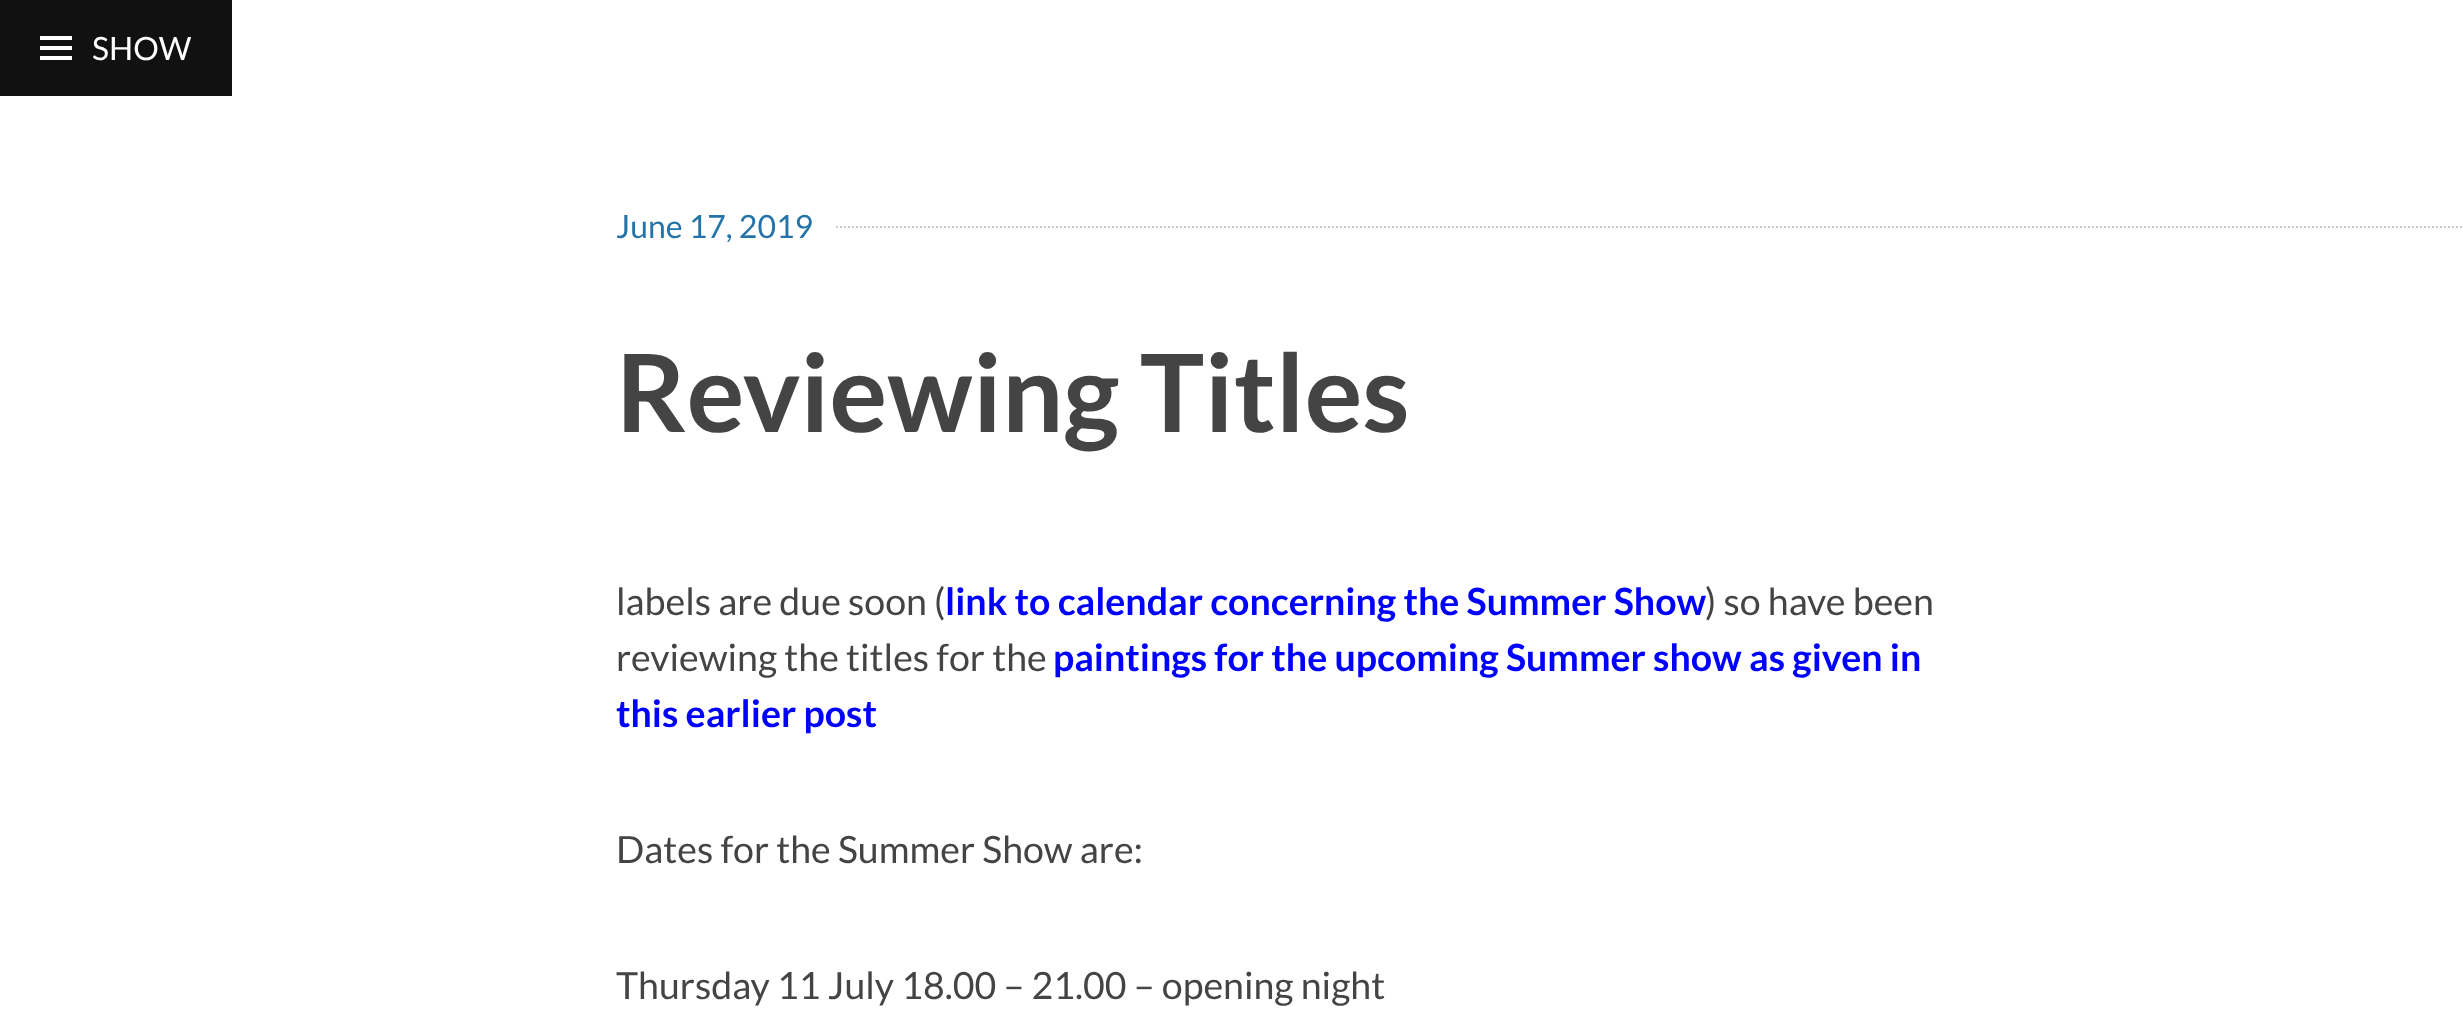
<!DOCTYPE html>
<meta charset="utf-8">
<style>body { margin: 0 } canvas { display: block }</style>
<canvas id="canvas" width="2463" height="1014"></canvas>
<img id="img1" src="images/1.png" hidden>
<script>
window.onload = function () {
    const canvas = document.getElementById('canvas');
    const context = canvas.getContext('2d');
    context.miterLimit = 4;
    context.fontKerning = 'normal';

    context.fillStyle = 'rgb(255, 255, 255)';
    context.fillRect(0, 0, 2463, 1014);
    context.fillStyle = 'rgb(17, 17, 17)';
    context.fillRect(0, 0, 232, 96);
    context.drawImage(document.getElementById('img1'), 40, 36, 32, 24);
    context.beginPath();
    context.moveTo(616, 227);
    context.lineTo(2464, 227);
    context.strokeStyle = 'rgb(204, 204, 204)';
    context.lineWidth = 2;
    context.setLineDash([2, 2]);
    context.stroke();
    context.fillStyle = 'rgb(255, 255, 255)';
    context.fillRect(616, 226, 218, 2);
    context.font = '32px Lato';
    context.fillText('SHOW', 92, 60);
    context.fillStyle = 'rgb(37, 116, 169)';
    context.fillText('June 17, 2019', 616, 238);
    context.font = 'bold 108px Lato';
    context.fillStyle = 'rgb(68, 68, 68)';
    context.fillText('Reviewing Titles', 616, 432);
    context.font = '37.5px Lato';
    context.fillText('labels are due soon (', 616, 615);
    context.font = 'bold 37.5px Lato';
    context.fillStyle = 'rgb(0, 0, 255)';
    context.fillText('link to calendar concerning the Summer Show', 945, 615);
    context.font = '37.5px Lato';
    context.fillStyle = 'rgb(68, 68, 68)';
    context.fillText(') so have been', 1705, 615);
    context.fillText('reviewing the titles for the', 616, 671);
    context.font = 'bold 37.5px Lato';
    context.fillStyle = 'rgb(0, 0, 255)';
    context.fillText('paintings for the upcoming Summer show as given in', 1053, 671);
    context.fillText('this earlier post', 616, 727);
    context.font = '37.5px Lato';
    context.fillStyle = 'rgb(68, 68, 68)';
    context.fillText('Dates for the Summer Show are:', 616, 863);
    context.fillText('Thursday 11 July 18.00 – 21.00 – opening night', 616, 999);
};
</script>
